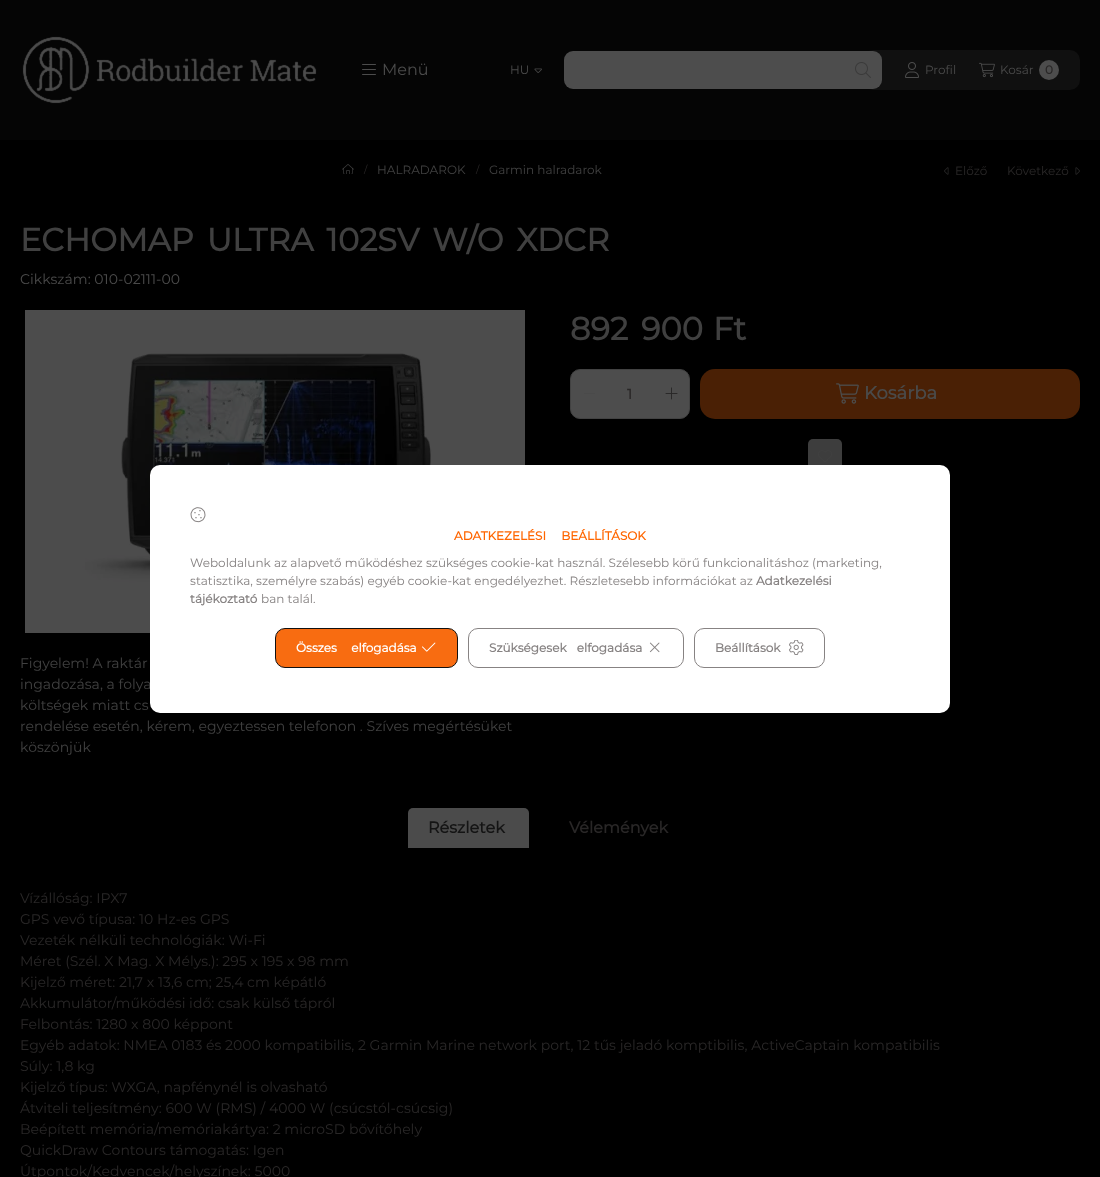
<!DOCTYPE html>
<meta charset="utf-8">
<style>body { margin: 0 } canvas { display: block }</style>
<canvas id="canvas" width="1100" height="1177"></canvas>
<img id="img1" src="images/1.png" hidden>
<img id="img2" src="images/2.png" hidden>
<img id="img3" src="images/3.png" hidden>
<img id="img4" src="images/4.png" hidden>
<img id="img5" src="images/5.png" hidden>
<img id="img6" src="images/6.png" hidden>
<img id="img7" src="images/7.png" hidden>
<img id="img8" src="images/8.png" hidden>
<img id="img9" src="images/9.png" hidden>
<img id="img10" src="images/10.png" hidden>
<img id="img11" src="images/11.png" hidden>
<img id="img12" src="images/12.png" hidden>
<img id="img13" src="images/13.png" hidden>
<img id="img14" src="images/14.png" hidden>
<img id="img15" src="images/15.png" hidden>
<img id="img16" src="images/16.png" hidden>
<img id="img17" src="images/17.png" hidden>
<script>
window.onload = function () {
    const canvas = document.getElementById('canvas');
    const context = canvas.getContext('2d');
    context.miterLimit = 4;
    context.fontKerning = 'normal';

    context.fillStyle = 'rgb(0, 0, 0)';
    context.fillRect(0, 0, 1100, 1177);
    context.fillStyle = 'rgb(5, 5, 5)';
    context.fillRect(0, 0, 1100, 140);
    context.drawImage(document.getElementById('img1'), 22, 36, 295, 68);
    context.drawImage(document.getElementById('img2'), 362, 64, 14, 11);
    context.drawImage(document.getElementById('img3'), 534, 68, 8, 5);
    context.fillStyle = 'rgb(16, 16, 16)';
    context.beginPath();
    context.roundRect(863, 50, 217, 40, 10);
    context.fill();
    context.fillStyle = 'rgb(77, 77, 77)';
    context.beginPath();
    context.roundRect(564, 51, 318, 38, 9);
    context.fill();
    context.drawImage(document.getElementById('img4'), 855, 62, 16, 16);
    context.drawImage(document.getElementById('img5'), 905, 62, 14, 16);
    context.drawImage(document.getElementById('img6'), 979, 62, 16, 16);
    context.beginPath();
    context.arc(1049, 70, 10, 0, 2 * Math.PI);
    context.fill();
    context.drawImage(document.getElementById('img7'), 342, 164, 12, 10);
    context.drawImage(document.getElementById('img8'), 944, 167, 5, 8);
    context.drawImage(document.getElementById('img9'), 1075, 167, 5, 8);
    context.beginPath();
    context.roundRect(570.5, 369.5, 119, 49, 9.5);
    context.fill();
    context.strokeStyle = 'rgb(66, 66, 66)';
    context.stroke();
    context.fillStyle = 'rgb(74, 74, 74)';
    context.fillRect(584, 393, 11, 1);
    context.drawImage(document.getElementById('img10'), 665, 387, 13, 13);
    context.fillStyle = 'rgb(74, 32, 5)';
    context.beginPath();
    context.roundRect(700, 369, 380, 50, 15);
    context.fill();
    context.drawImage(document.getElementById('img11'), 836, 383, 23, 21);
    context.fillStyle = 'rgb(61, 61, 61)';
    context.beginPath();
    context.roundRect(808, 439, 34, 34, 5);
    context.fill();
    context.drawImage(document.getElementById('img12'), 818, 450, 14, 12);
    context.drawImage(document.getElementById('img13'), 25, 310, 500, 323);
    context.fillStyle = 'rgb(75, 75, 75)';
    context.beginPath();
    context.roundRect(408, 808, 121, 40, [5, 5, 0, 0]);
    context.fill();
    context.font = '16px Montserrat';
    context.fillStyle = 'rgb(74, 74, 74)';
    context.fillText('Menü', 382, 75);
    context.font = '12px Montserrat';
    context.fillText('HU', 510, 74);
    context.fillText('Profil', 925, 74);
    context.fillText('Kosár', 1000, 74);
    context.font = 'bold 12px Montserrat';
    context.fillStyle = 'rgb(41, 39, 39)';
    context.fillText('0', 1045, 74);
    context.font = '10px Montserrat';
    context.fillText('/', 364, 173);
    context.font = '12px Montserrat';
    context.fillStyle = 'rgb(64, 64, 64)';
    context.fillText('HALRADAROK', 377, 174);
    context.font = '10px Montserrat';
    context.fillStyle = 'rgb(41, 39, 39)';
    context.fillText('/', 476, 173);
    context.font = '12px Montserrat';
    context.fillStyle = 'rgb(64, 64, 64)';
    context.fillText('Garmin halradarok', 489, 174);
    context.fillStyle = 'rgb(41, 39, 39)';
    context.fillText('Előző', 955, 175);
    context.fillText('Következő', 1007, 175);
    context.wordSpacing = '4.5px';
    context.font = 'bold 32px Montserrat';
    context.fillStyle = 'rgb(64, 64, 64)';
    context.fillText('ECHOMAP ULTRA 102SV W/O XDCR', 20, 251);
    context.wordSpacing = '0px';
    context.font = '14px Montserrat';
    context.fillStyle = 'rgb(74, 74, 74)';
    context.fillText('Cikkszám: 010-02111-00', 20, 284);
    context.wordSpacing = '4.5px';
    context.font = 'bold 32px Montserrat';
    context.fillStyle = 'rgb(64, 64, 64)';
    context.fillText('892 900', 570, 340);
    context.wordSpacing = '0px';
    context.fillText('Ft', 713, 340);
    context.font = 'bold 14px Montserrat';
    context.fillStyle = 'rgb(41, 39, 39)';
    context.fillText('1', 627, 399);
    context.font = 'bold 18px Montserrat';
    context.fillStyle = 'rgb(74, 74, 74)';
    context.fillText('Kosárba', 864, 399);
    context.font = '14px Montserrat';
    context.fillStyle = 'rgb(64, 64, 64)';
    context.fillText('Figyelem! A raktár', 20, 668);
    context.fillText('ingadozása, a folya', 20, 689);
    context.fillText('költségek miatt cs', 20, 710);
    context.fillText('rendelése esetén, kérem, egyeztessen telefonon . Szíves megértésüket', 20, 731);
    context.fillText('köszönjük', 20, 752);
    context.font = 'bold 16px Montserrat';
    context.fillStyle = 'rgb(20, 20, 20)';
    context.fillText('Részletek', 428, 833);
    context.fillStyle = 'rgb(41, 39, 39)';
    context.fillText('Vélemények', 569, 833);
    context.font = '14px Montserrat';
    context.fillText('Vízállóság: IPX7', 20, 903);
    context.fillText('GPS vevő típusa: 10 Hz-es GPS', 20, 924);
    context.fillText('Vezeték nélküli technológiák: Wi-Fi', 20, 945);
    context.fillText('Méret (Szél. X Mag. X Mélys.): 295 x 195 x 98 mm', 20, 966);
    context.fillText('Kijelző méret: 21,7 x 13,6 cm; 25,4 cm képátló', 20, 987);
    context.fillText('Akkumulátor/működési idő: csak külső tápról', 20, 1008);
    context.fillText('Felbontás: 1280 x 800 képpont', 20, 1029);
    context.fillText('Egyéb adatok: NMEA 0183 és 2000 kompatibilis, 2 Garmin Marine network port, 12 tűs jeladó komptibilis, ActiveCaptain kompatibilis', 20, 1050);
    context.fillText('Súly: 1,8 kg', 20, 1071);
    context.fillText('Kijelző típus: WXGA, napfénynél is olvasható', 20, 1092);
    context.fillText('Átviteli teljesítmény: 600 W (RMS) / 4000 W (csúcstól-csúcsig)', 20, 1113);
    context.fillText('Beépített memória/memóriakártya: 2 microSD bővítőhely', 20, 1134);
    context.fillText('QuickDraw Contours támogatás: Igen', 20, 1155);
    context.fillText('Útpontok/Kedvencek/helyszínek: 5000', 20, 1176);
    context.fillStyle = 'rgb(255, 255, 255)';
    context.beginPath();
    context.roundRect(150, 465, 800, 248, 10);
    context.fill();
    context.drawImage(document.getElementById('img14'), 190, 507, 16, 16);
    context.wordSpacing = '12px';
    context.font = 'bold 12px Montserrat';
    context.fillStyle = 'rgb(255, 102, 0)';
    context.fillText('ADATKEZELÉSI BEÁLLÍTÁSOK', 454, 540);
    context.wordSpacing = '0px';
    context.font = '12px Montserrat';
    context.fillStyle = 'rgb(135, 131, 131)';
    context.fillText('Weboldalunk az alapvető működéshez szükséges cookie-kat használ. Szélesebb körű funkcionalitáshoz (marketing,', 190, 567);
    context.fillText('statisztika, személyre szabás) egyéb cookie-kat engedélyezhet. Részletesebb információkat az', 190, 585);
    context.font = 'bold 12px Montserrat';
    context.fillText('Adatkezelési', 756, 585);
    context.fillText('tájékoztató', 190, 603);
    context.font = '12px Montserrat';
    context.fillText('ban talál.', 261, 603);
    context.fillStyle = 'rgb(248, 108, 17)';
    context.beginPath();
    context.roundRect(275.5, 628.5, 182, 39, 9.5);
    context.fill();
    context.strokeStyle = 'rgb(17, 17, 17)';
    context.stroke();
    context.wordSpacing = '11px';
    context.font = 'bold 12px Montserrat';
    context.fillStyle = 'rgb(255, 255, 255)';
    context.fillText('Összes elfogadása', 296, 652);
    context.drawImage(document.getElementById('img15'), 422, 642, 14, 10);
    context.beginPath();
    context.roundRect(468.5, 628.5, 215, 39, 9.5);
    context.strokeStyle = 'rgb(135, 131, 131)';
    context.stroke();
    context.wordSpacing = '7px';
    context.fillStyle = 'rgb(135, 131, 131)';
    context.fillText('Szükségesek elfogadása', 489, 652);
    context.drawImage(document.getElementById('img16'), 649, 642, 11, 11);
    context.beginPath();
    context.roundRect(694.5, 628.5, 130, 39, 9.5);
    context.stroke();
    context.wordSpacing = '0px';
    context.fillText('Beállítások', 715, 652);
    context.drawImage(document.getElementById('img17'), 789, 640, 15, 15);
};
</script>
